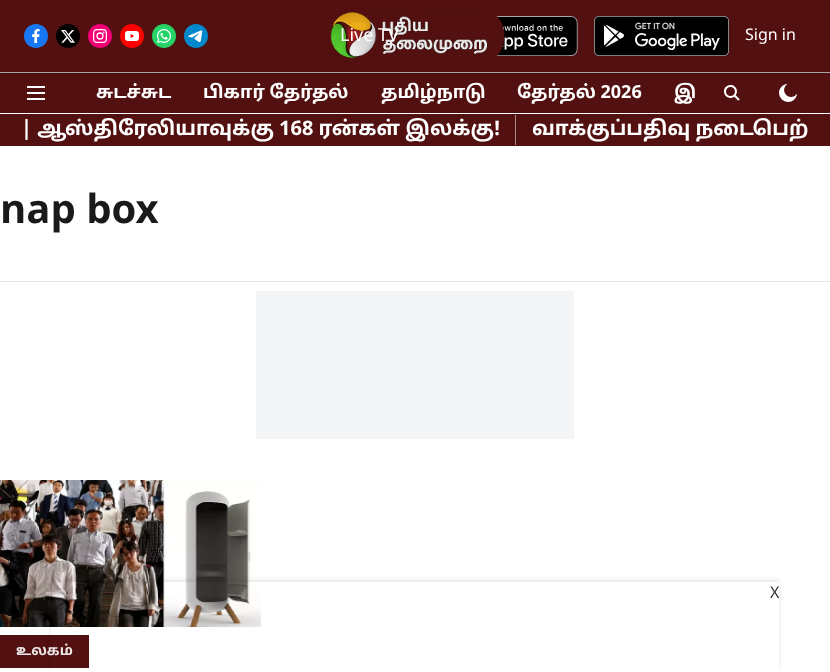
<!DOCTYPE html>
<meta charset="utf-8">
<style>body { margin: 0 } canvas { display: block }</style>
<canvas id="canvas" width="830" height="672"></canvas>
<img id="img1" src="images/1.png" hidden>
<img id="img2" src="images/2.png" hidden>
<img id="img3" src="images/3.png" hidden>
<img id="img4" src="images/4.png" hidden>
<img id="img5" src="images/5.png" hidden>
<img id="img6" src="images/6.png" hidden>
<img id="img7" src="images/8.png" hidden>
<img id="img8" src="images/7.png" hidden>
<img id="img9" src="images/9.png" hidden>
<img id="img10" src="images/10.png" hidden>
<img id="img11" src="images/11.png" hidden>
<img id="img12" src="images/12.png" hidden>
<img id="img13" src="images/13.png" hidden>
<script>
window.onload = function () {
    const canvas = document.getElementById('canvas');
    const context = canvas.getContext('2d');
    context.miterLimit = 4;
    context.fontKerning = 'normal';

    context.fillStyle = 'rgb(255, 255, 255)';
    context.fillRect(0, 0, 830, 672);
    context.fillStyle = 'rgb(82, 16, 16)';
    context.fillRect(0, 0, 830, 72);
    context.fillStyle = 'rgb(164, 164, 164)';
    context.fillRect(0, 72, 830, 1);
    context.drawImage(document.getElementById('img1'), 24, 24, 24, 24);
    context.drawImage(document.getElementById('img2'), 56, 24, 24, 24);
    context.drawImage(document.getElementById('img3'), 88, 24, 24, 24);
    context.drawImage(document.getElementById('img4'), 120, 24, 24, 24);
    context.drawImage(document.getElementById('img5'), 152, 24, 24, 24);
    context.drawImage(document.getElementById('img6'), 184, 24, 24, 24);
    context.drawImage(document.getElementById('img7'), 496, 16, 82, 40);
    context.drawImage(document.getElementById('img8'), 326, 8, 179, 56);
    context.drawImage(document.getElementById('img9'), 594, 16, 135, 40);
    context.fillStyle = 'rgb(82, 16, 16)';
    context.fillRect(0, 73, 830, 40);
    context.drawImage(document.getElementById('img10'), 27, 86, 18, 14);
    context.drawImage(document.getElementById('img11'), 723, 85, 17, 16);
    context.drawImage(document.getElementById('img12'), 779, 84, 18, 18);
    context.fillRect(0, 114, 830, 32);
    context.fillStyle = 'rgb(169, 136, 136)';
    context.fillRect(515, 115, 1, 30);
    context.fillStyle = 'rgb(230, 230, 230)';
    context.fillRect(0, 281, 830, 1);
    context.fillStyle = 'rgb(244, 245, 247)';
    context.fillRect(256, 291, 318, 148);
    context.drawImage(document.getElementById('img13'), 0, 480, 261, 147);
    context.fillStyle = 'rgb(82, 16, 16)';
    context.fillRect(0, 635, 89, 33);
    context.save();
    context.beginPath();
    context.moveTo(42, 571);
    context.lineTo(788, 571);
    context.lineTo(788, 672);
    context.lineTo(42, 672);
    context.closePath();
    context.moveTo(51, 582);
    context.lineTo(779, 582);
    context.lineTo(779, 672);
    context.lineTo(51, 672);
    context.closePath();
    context.clip('evenodd');
    context.fillStyle = 'rgba(0, 0, 0, 0.1)';
    context.filter = 'blur(2.5px)';
    context.beginPath();
    context.rect(51, 580, 728, 90);
    context.fill();
    context.filter = 'none';
    context.restore();
    context.font = '18px Noto Sans Tamil';
    context.fillStyle = 'rgb(255, 255, 255)';
    context.fillText('Live TV', 340, 41);
    context.font = '16px Noto Sans Tamil';
    context.fillText('Sign in', 745, 40);
    context.font = 'bold 18px Noto Sans Tamil';
    context.fillText('சுடச்சுட', 96, 98);
    context.fillText('பிகார் தேர்தல்', 203, 98);
    context.fillText('தமிழ்நாடு', 381, 98);
    context.fillText('தேர்தல் 2026', 517, 98);
    context.fillText('இ', 674, 98);
    context.font = 'bold 20px Noto Sans Tamil';
    context.fillText('| ஆஸ்திரேலியாவுக்கு 168 ரன்கள் இலக்கு!', 21, 135);
    context.fillText('வாக்குப்பதிவு நடைபெற்', 532, 135);
    context.font = 'bold 40px Noto Sans Tamil';
    context.fillStyle = 'rgb(26, 26, 26)';
    context.fillText('nap box', 0, 223);
    context.font = 'bold 14px Noto Sans Tamil';
    context.fillStyle = 'rgb(238, 231, 231)';
    context.fillText('உலகம்', 16, 655);
    context.font = '16px Noto Sans Tamil';
    context.fillStyle = 'rgb(51, 51, 51)';
    context.fillText('X', 770, 598);
};
</script>
